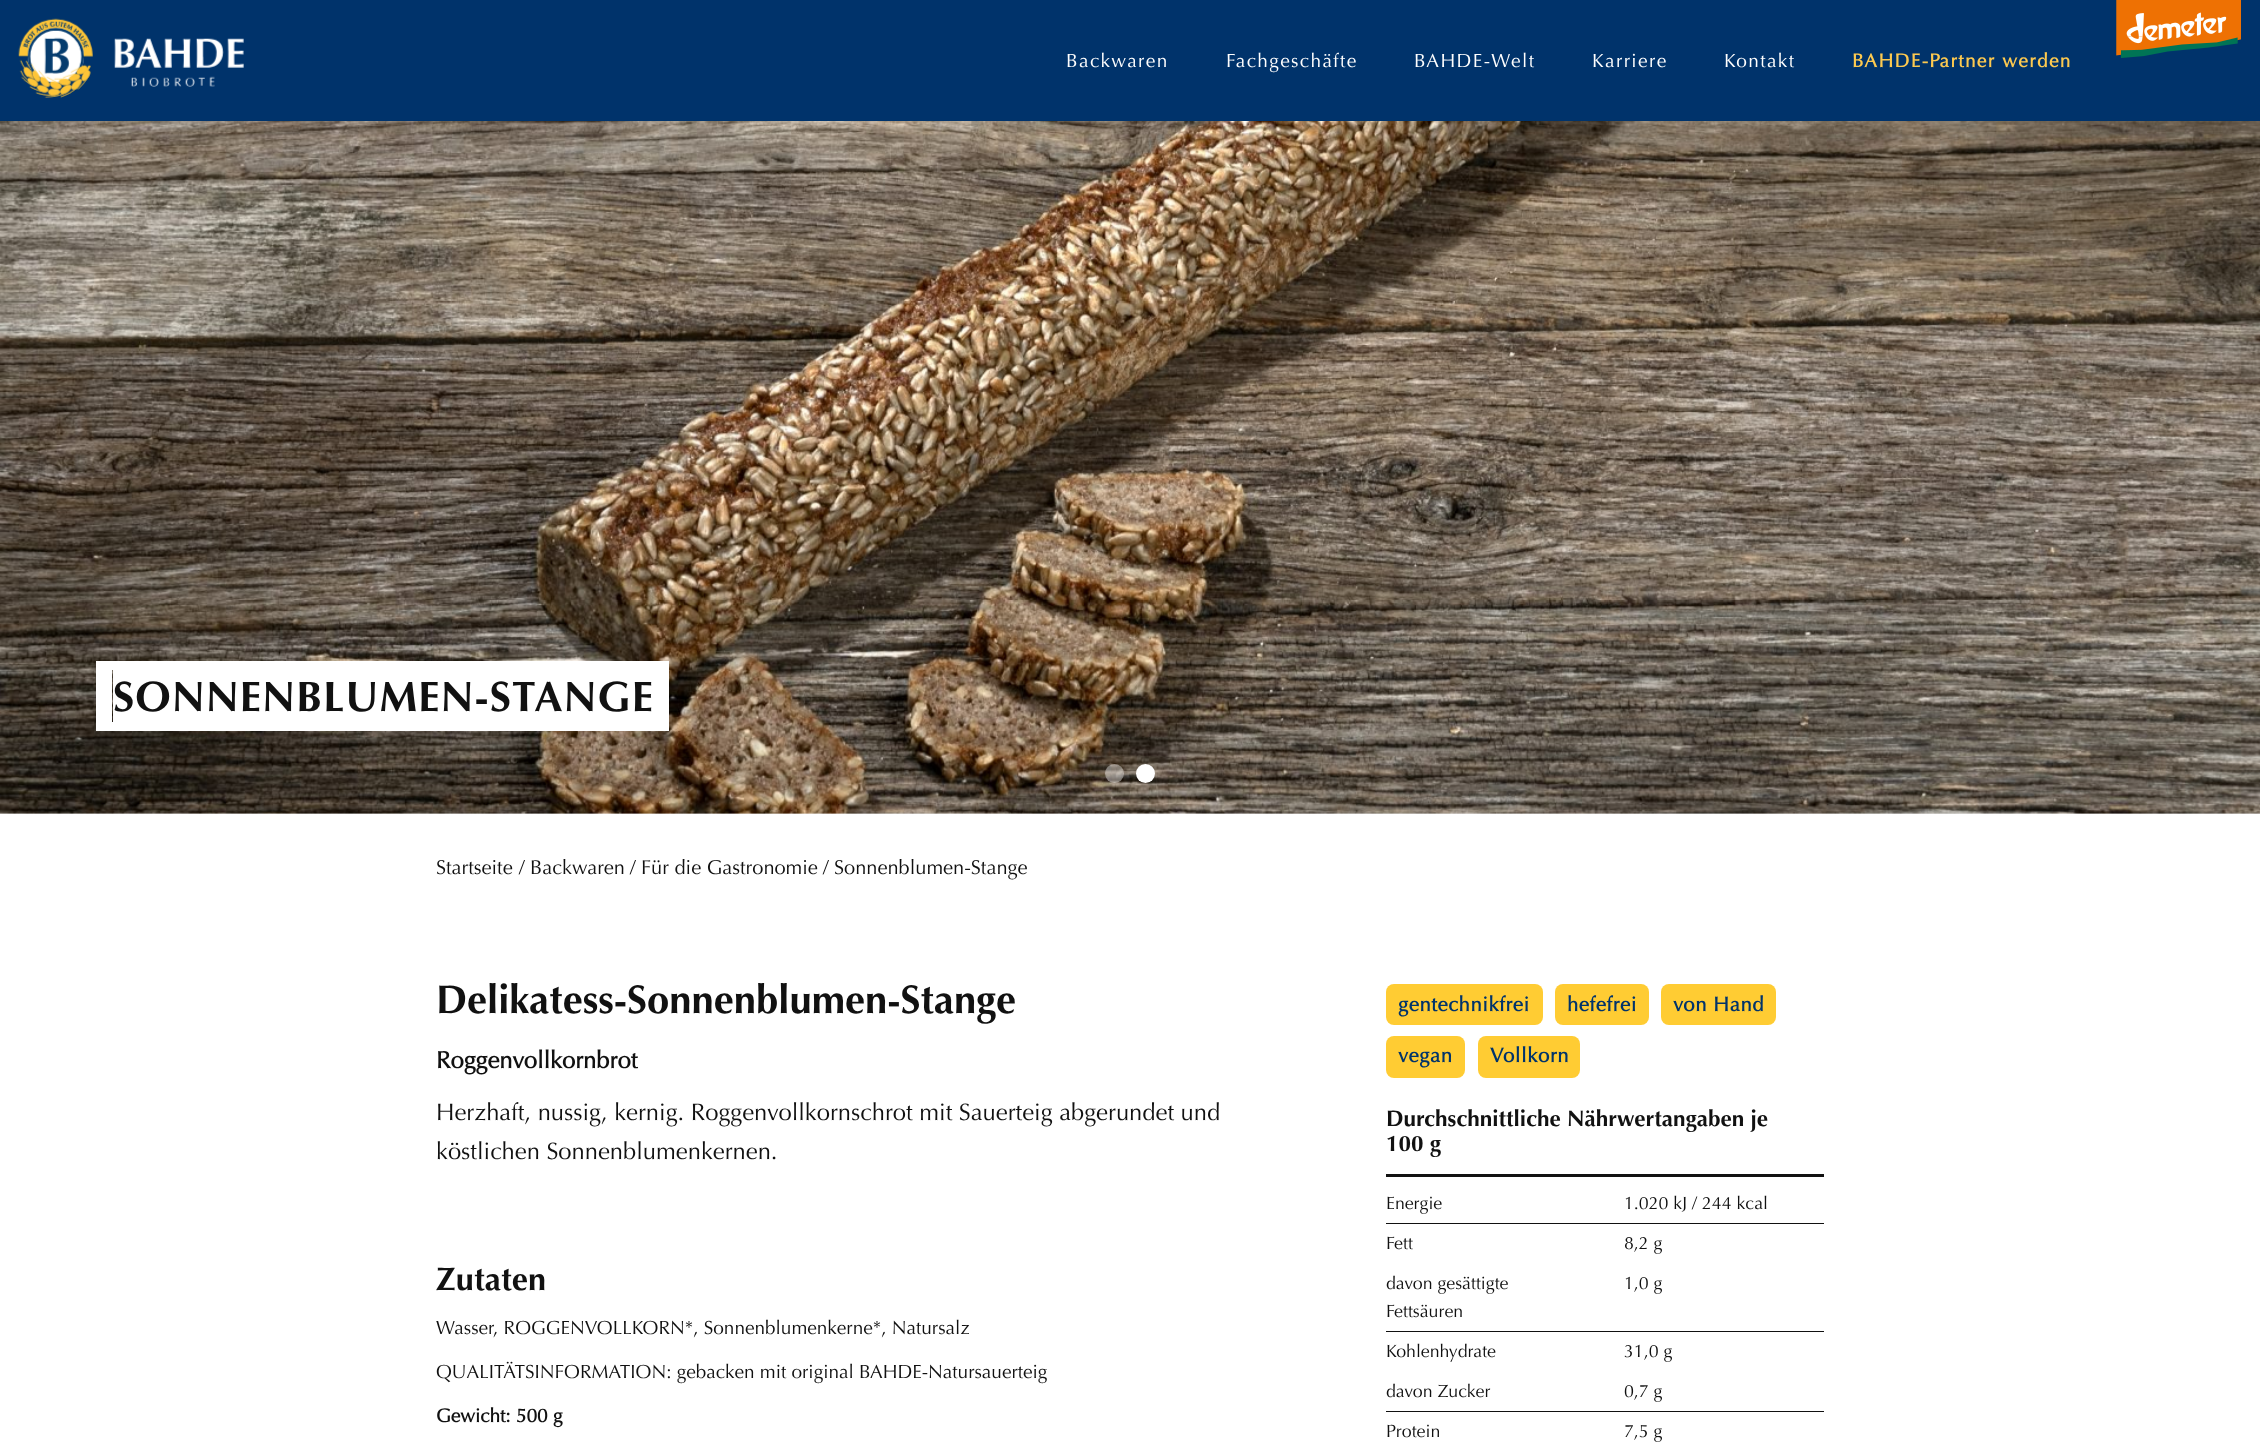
<!DOCTYPE html>
<meta charset="utf-8">
<style>body { margin: 0 } canvas { display: block }</style>
<canvas id="canvas" width="2260" height="1446"></canvas>
<img id="img1" src="images/1.png" hidden>
<img id="img2" src="images/2.png" hidden>
<img id="img3" src="images/3.png" hidden>
<script>
window.onload = function () {
    const canvas = document.getElementById('canvas');
    const context = canvas.getContext('2d');
    context.miterLimit = 4;
    context.fontKerning = 'normal';

    context.fillStyle = 'rgb(255, 255, 255)';
    context.fillRect(0, 0, 2260, 1446);
    context.fillStyle = 'rgb(0, 51, 107)';
    context.fillRect(0, 0, 2260, 121);
    context.drawImage(document.getElementById('img1'), 18, 18, 226, 80);
    context.drawImage(document.getElementById('img2'), 2116, 0, 125, 58);
    context.drawImage(document.getElementById('img3'), 0, 121, 2260, 693);
    context.fillStyle = 'rgba(255, 255, 255, 0.4)';
    context.beginPath();
    context.arc(1114.5, 773.5, 9.5, 0, 2 * Math.PI);
    context.fill();
    context.fillStyle = 'rgb(255, 255, 255)';
    context.beginPath();
    context.arc(1145.5, 773.5, 9.5, 0, 2 * Math.PI);
    context.fill();
    context.beginPath();
    context.moveTo(96, 661);
    context.lineTo(96, 731);
    context.lineTo(654, 731);
    context.lineTo(654, 661);
    context.closePath();
    context.moveTo(112, 670);
    context.lineTo(112, 722);
    context.lineTo(652, 722);
    context.lineTo(652, 670);
    context.closePath();
    context.fill('evenodd');
    context.beginPath();
    context.moveTo(111, 661);
    context.lineTo(111, 731);
    context.lineTo(669, 731);
    context.lineTo(669, 661);
    context.closePath();
    context.moveTo(112, 670);
    context.lineTo(112, 722);
    context.lineTo(652, 722);
    context.lineTo(652, 670);
    context.closePath();
    context.fill('evenodd');
    context.fillRect(113, 670, 539, 52);
    context.fillStyle = 'rgb(255, 204, 51)';
    context.beginPath();
    context.roundRect(1386, 984, 157, 41, 8);
    context.fill();
    context.beginPath();
    context.roundRect(1555, 984, 94, 41, 8);
    context.fill();
    context.beginPath();
    context.roundRect(1661, 984, 115, 41, 8);
    context.fill();
    context.beginPath();
    context.roundRect(1386, 1036, 79, 42, 8);
    context.fill();
    context.beginPath();
    context.roundRect(1478, 1036, 102, 42, 8);
    context.fill();
    context.fillStyle = 'rgb(17, 17, 17)';
    context.fillRect(1386, 1174, 438, 3);
    context.fillRect(1386, 1223, 438, 1);
    context.fillRect(1386, 1331, 438, 1);
    context.fillRect(1386, 1411, 438, 1);
    context.letterSpacing = '1.4px';
    context.font = '19px Optima';
    context.fillStyle = 'rgb(255, 255, 255)';
    context.fillText('Backwaren', 1066, 67);
    context.fillText('Fachgeschäfte', 1226, 67);
    context.fillText('BAHDE-Welt', 1414, 67);
    context.fillText('Karriere', 1592, 67);
    context.fillText('Kontakt', 1724, 67);
    context.font = 'bold 19px "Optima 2"';
    context.fillStyle = 'rgb(253, 202, 80)';
    context.fillText('BAHDE-Partner werden', 1852, 67);
    context.letterSpacing = '1px';
    context.font = 'bold 42.5px Optima';
    context.fillStyle = 'rgb(17, 17, 17)';
    context.fillText('SONNENBLUMEN-STANGE', 113, 711);
    context.letterSpacing = '0px';
    context.font = '20px Optima';
    context.fillText('Startseite', 436, 874);
    context.fillText('/ Backwaren', 519, 874);
    context.fillText('/ Für die Gastronomie', 630, 874);
    context.fillText('/ Sonnenblumen-Stange', 823, 874);
    context.font = 'bold 40px Optima';
    context.fillText('Delikatess-Sonnenblumen-Stange', 436, 1013);
    context.font = 'bold 23.75px "Optima 2"';
    context.fillText('Roggenvollkornbrot', 436, 1068);
    context.font = '23.75px Optima';
    context.fillText('Herzhaft, nussig, kernig. Roggenvollkornschrot mit Sauerteig abgerundet und', 436, 1120);
    context.fillText('köstlichen Sonnenblumenkernen.', 436, 1159);
    context.font = 'bold 32.5px Optima';
    context.fillText('Zutaten', 436, 1290);
    context.font = '19px Optima';
    context.fillText('Wasser, ROGGENVOLLKORN*, Sonnenblumenkerne*, Natursalz', 436, 1334);
    context.fillText('QUALITÄTSINFORMATION: gebacken mit original BAHDE-Natursauerteig', 436, 1378);
    context.font = 'bold 19px "Optima 2"';
    context.fillText('Gewicht: 500 g', 436, 1422);
    context.letterSpacing = '0.6px';
    context.font = 'bold 20.25px "Optima 2"';
    context.fillStyle = 'rgb(0, 51, 107)';
    context.fillText('gentechnikfrei', 1398, 1011);
    context.fillText('hefefrei', 1567, 1011);
    context.fillText('von Hand', 1673, 1011);
    context.fillText('vegan', 1398, 1062);
    context.fillText('Vollkorn', 1490, 1062);
    context.letterSpacing = '0px';
    context.font = 'bold 22.5px Optima';
    context.fillStyle = 'rgb(17, 17, 17)';
    context.fillText('Durchschnittliche Nährwertangaben je', 1386, 1126);
    context.fillText('100 g', 1386, 1151);
    context.font = '17.75px Optima';
    context.fillText('Energie', 1386, 1209);
    context.fillText('1.020 kJ / 244 kcal', 1624, 1209);
    context.fillText('Fett', 1386, 1249);
    context.fillText('8,2 g', 1624, 1249);
    context.fillText('davon gesättigte', 1386, 1289);
    context.fillText('Fettsäuren', 1386, 1317);
    context.fillText('1,0 g', 1624, 1289);
    context.fillText('Kohlenhydrate', 1386, 1357);
    context.fillText('31,0 g', 1624, 1357);
    context.fillText('davon Zucker', 1386, 1397);
    context.fillText('0,7 g', 1624, 1397);
    context.fillText('Protein', 1386, 1437);
    context.fillText('7,5 g', 1624, 1437);
};
</script>
